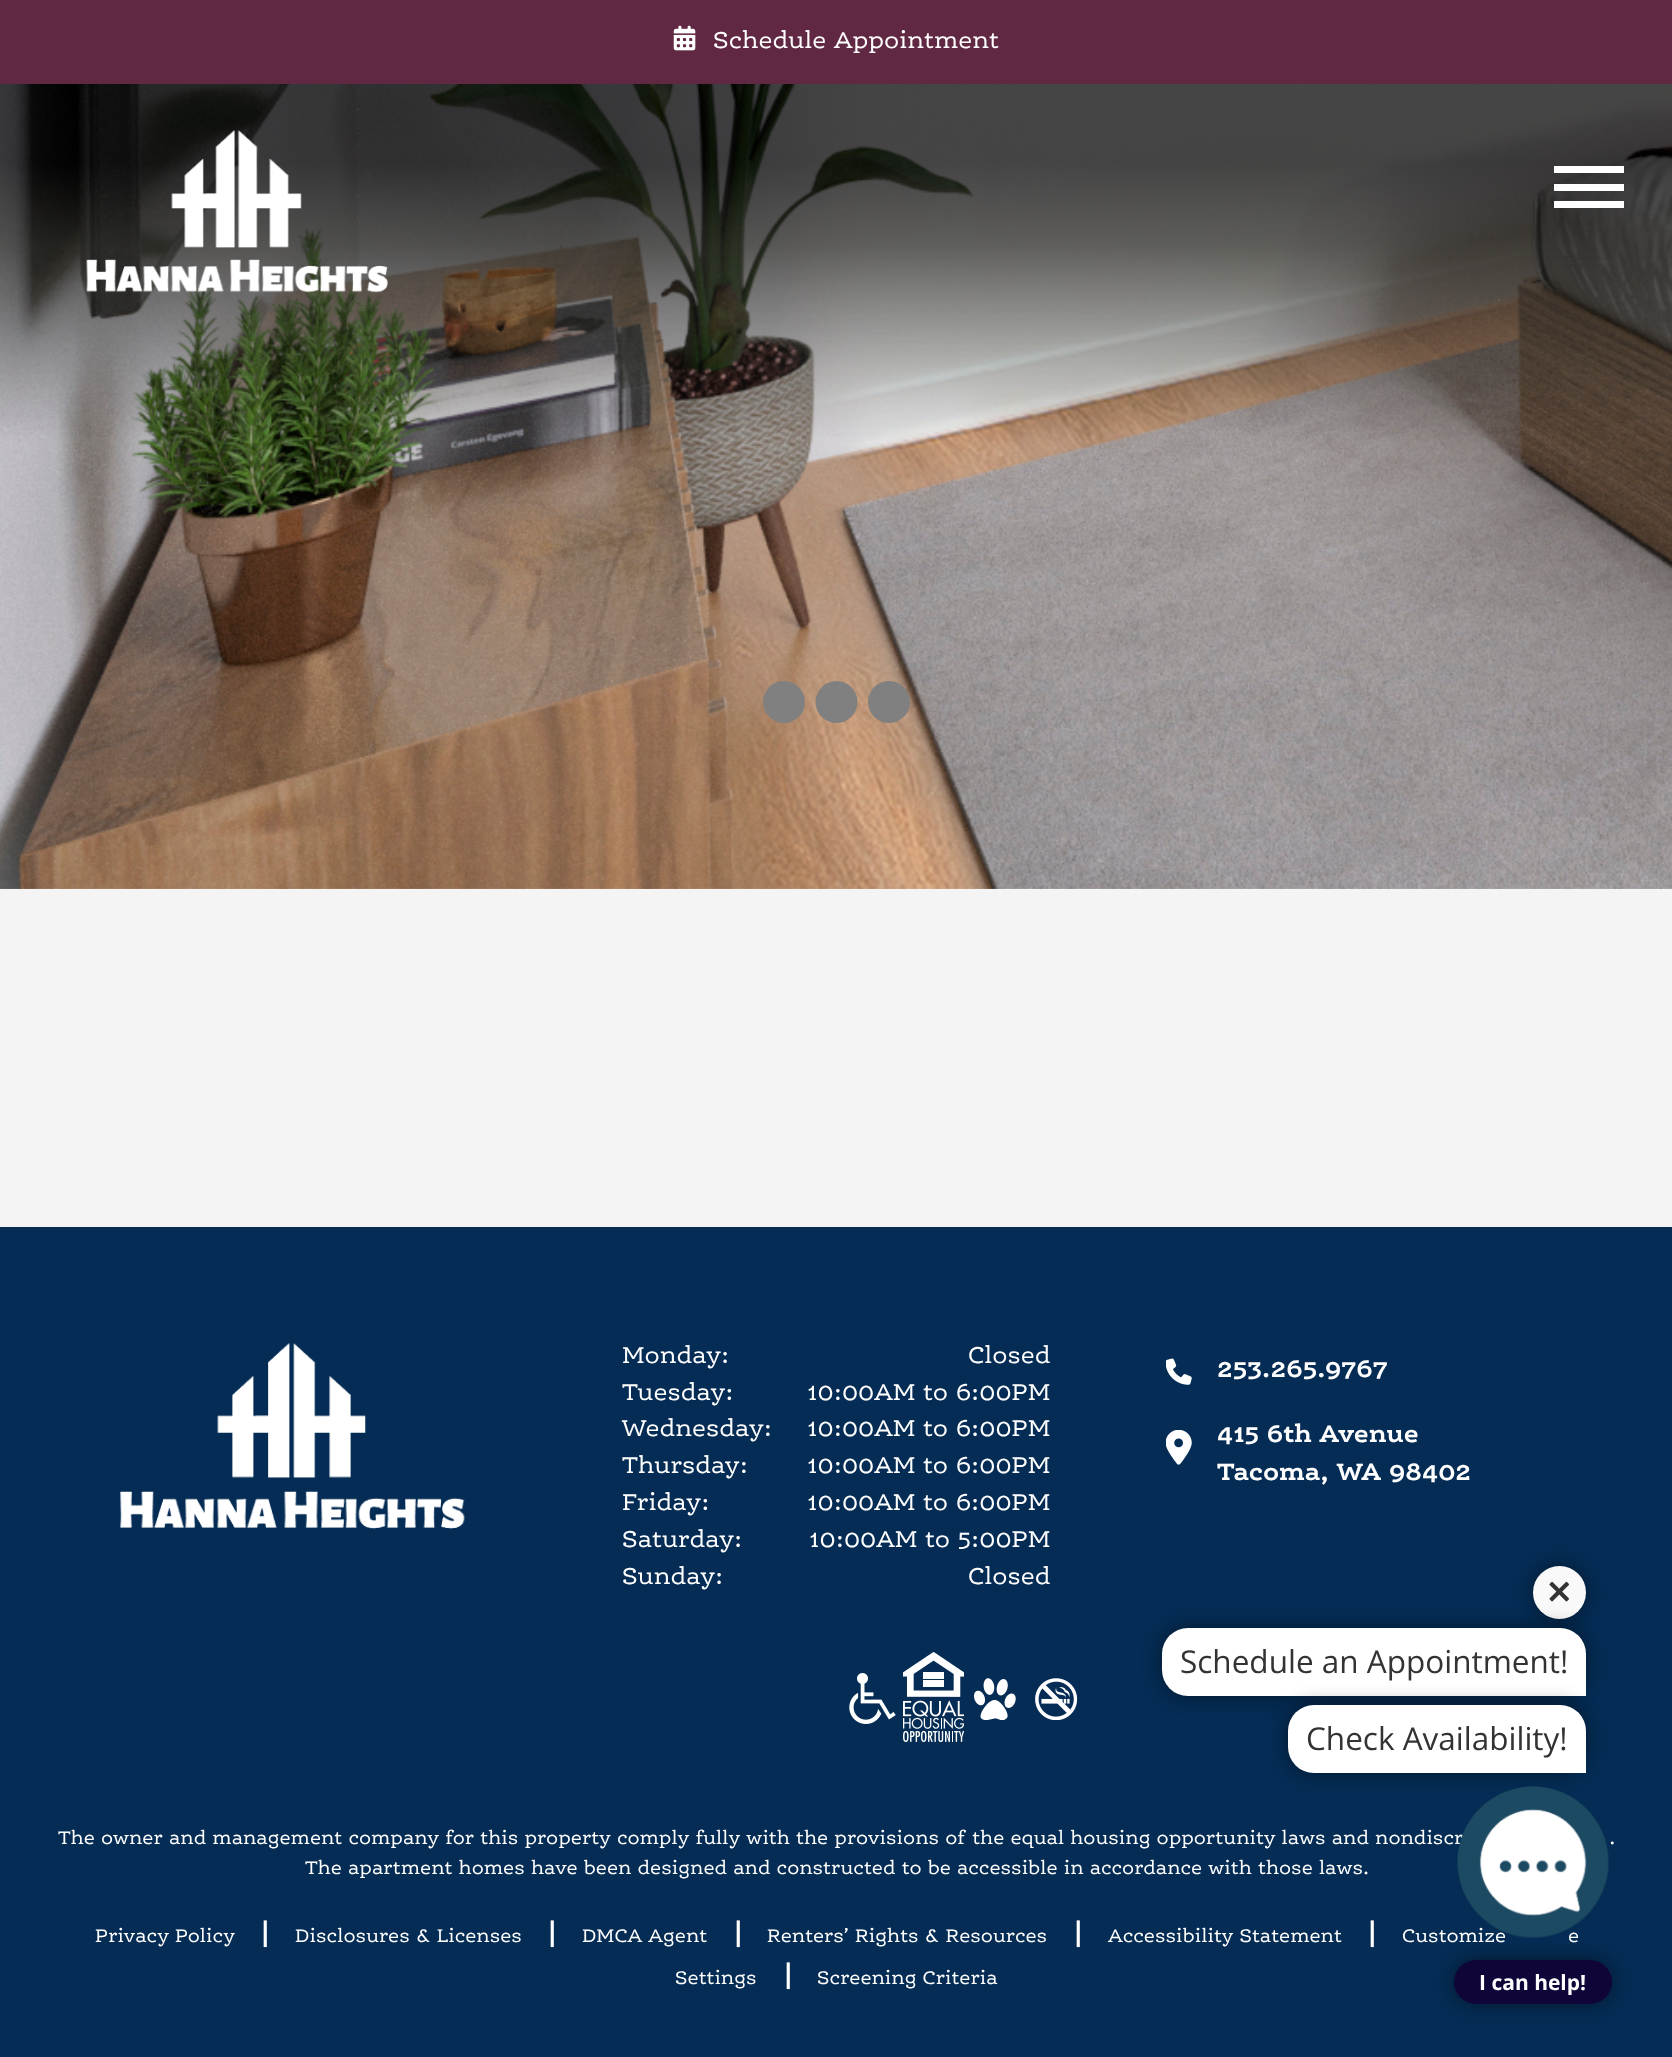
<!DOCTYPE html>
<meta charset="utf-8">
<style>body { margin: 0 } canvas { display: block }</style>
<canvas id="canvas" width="1672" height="2057"></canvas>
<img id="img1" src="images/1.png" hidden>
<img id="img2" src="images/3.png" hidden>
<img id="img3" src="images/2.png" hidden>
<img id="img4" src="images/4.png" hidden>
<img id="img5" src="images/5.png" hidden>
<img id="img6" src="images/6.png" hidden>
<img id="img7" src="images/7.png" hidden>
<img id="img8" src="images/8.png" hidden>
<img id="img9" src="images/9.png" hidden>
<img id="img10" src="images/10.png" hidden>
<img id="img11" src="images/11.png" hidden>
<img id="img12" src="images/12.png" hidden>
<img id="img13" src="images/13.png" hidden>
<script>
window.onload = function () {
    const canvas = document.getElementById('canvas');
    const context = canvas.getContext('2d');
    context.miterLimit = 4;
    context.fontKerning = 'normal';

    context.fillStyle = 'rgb(5, 44, 84)';
    context.fillRect(0, 0, 1672, 2057);
    context.fillStyle = 'rgb(96, 40, 67)';
    context.fillRect(0, 0, 1672, 84);
    context.drawImage(document.getElementById('img1'), 673, 25, 23, 26);
    context.fillStyle = 'rgb(244, 244, 244)';
    context.fillRect(0, 888, 1672, 339);
    context.drawImage(document.getElementById('img2'), 0, 84, 1672, 805);
    context.drawImage(document.getElementById('img3'), 86, 130, 302, 163);
    context.fillStyle = 'rgb(255, 255, 255)';
    context.fillRect(1554, 184, 70, 7);
    context.fillRect(1554, 166, 70, 7);
    context.fillRect(1554, 201, 70, 7);
    context.drawImage(document.getElementById('img4'), 0, 888, 1672, 1);
    context.fillStyle = 'rgb(128, 128, 128)';
    context.beginPath();
    context.arc(784, 702, 21, 0, 2 * Math.PI);
    context.fill();
    context.beginPath();
    context.arc(836.5, 702, 21, 0, 2 * Math.PI);
    context.fill();
    context.beginPath();
    context.arc(889, 702, 21, 0, 2 * Math.PI);
    context.fill();
    context.drawImage(document.getElementById('img5'), 120, 1343, 345, 186);
    context.drawImage(document.getElementById('img6'), 1166, 1358, 26, 27);
    context.drawImage(document.getElementById('img7'), 1166, 1430, 26, 35);
    context.drawImage(document.getElementById('img8'), 849, 1673, 47, 51);
    context.drawImage(document.getElementById('img9'), 903, 1652, 61, 90);
    context.drawImage(document.getElementById('img10'), 974, 1678, 42, 42);
    context.drawImage(document.getElementById('img11'), 1035, 1678, 43, 42);
    context.fillStyle = 'rgba(0, 0, 0, 0.45)';
    context.filter = 'blur(9.5px)';
    context.beginPath();
    context.roundRect(1533, 1566, 53, 53, 26.5);
    context.fill();
    context.filter = 'none';
    context.fillStyle = 'rgb(249, 249, 249)';
    context.beginPath();
    context.arc(1559.5, 1592.5, 26.5, 0, 2 * Math.PI);
    context.fill();
    context.drawImage(document.getElementById('img12'), 1549, 1581, 20, 21);
    context.fillStyle = 'rgba(0, 0, 0, 0.45)';
    context.filter = 'blur(9.5px)';
    context.beginPath();
    context.roundRect(1162, 1628, 424, 68, 26);
    context.fill();
    context.filter = 'none';
    context.fillStyle = 'rgb(255, 255, 255)';
    context.beginPath();
    context.roundRect(1162, 1628, 424, 68, [26, 26, 0, 26]);
    context.fill();
    context.fillStyle = 'rgba(0, 0, 0, 0.45)';
    context.filter = 'blur(9.5px)';
    context.beginPath();
    context.roundRect(1288, 1705, 298, 68, 26);
    context.fill();
    context.filter = 'none';
    context.fillStyle = 'rgb(255, 255, 255)';
    context.beginPath();
    context.roundRect(1288, 1705, 298, 68, [26, 26, 0, 26]);
    context.fill();
    context.fillStyle = 'rgba(0, 0, 0, 0.45)';
    context.filter = 'blur(9.5px)';
    context.beginPath();
    context.roundRect(1454, 1960, 158, 44, 22);
    context.fill();
    context.filter = 'none';
    context.fillStyle = 'rgb(15, 5, 56)';
    context.beginPath();
    context.roundRect(1454, 1960, 158, 44, 22);
    context.fill();
    context.font = '24.6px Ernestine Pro';
    context.fillStyle = 'rgb(255, 255, 255)';
    context.fillText('Schedule Appointment', 713, 48);
    context.fillText('Monday:', 622, 1363);
    context.fillText('Closed', 968, 1363);
    context.fillText('Tuesday:', 622, 1400);
    context.fillText('10:00AM to 6:00PM', 807, 1400);
    context.fillText('Wednesday:', 622, 1436);
    context.fillText('10:00AM to 6:00PM', 807, 1436);
    context.fillText('Thursday:', 622, 1473);
    context.fillText('10:00AM to 6:00PM', 807, 1473);
    context.fillText('Friday:', 622, 1510);
    context.fillText('10:00AM to 6:00PM', 807, 1510);
    context.fillText('Saturday:', 622, 1547);
    context.fillText('10:00AM to 5:00PM', 809, 1547);
    context.fillText('Sunday:', 622, 1584);
    context.fillText('Closed', 968, 1584);
    context.font = 'bold 25.25px Ernestine Pro';
    context.fillText('253.265.9767', 1217, 1377);
    context.fillText('415 6th Avenue', 1217, 1442);
    context.fillText('Tacoma, WA 98402', 1217, 1480);
    context.font = '19.6px Ernestine Pro';
    context.fillText('The owner and management company for this property comply fully with the provisions of the equal housing opportunity laws and nondiscr', 58, 1844);
    context.fillText('.', 1609, 1844);
    context.fillText('The apartment homes have been designed and constructed to be accessible in accordance with those laws.', 305, 1874);
    context.fillText('Privacy Policy', 95, 1942);
    context.font = 'bold 28px Ernestine Pro';
    context.fillText('|', 260, 1942);
    context.font = '19.6px Ernestine Pro';
    context.fillText('Disclosures & Licenses', 295, 1942);
    context.font = 'bold 28px Ernestine Pro';
    context.fillText('|', 547, 1942);
    context.font = '19.6px Ernestine Pro';
    context.fillText('DMCA Agent', 582, 1942);
    context.font = 'bold 28px Ernestine Pro';
    context.fillText('|', 733, 1942);
    context.font = '19.6px Ernestine Pro';
    context.fillText('Renters’ Rights & Resources', 767, 1942);
    context.font = 'bold 28px Ernestine Pro';
    context.fillText('|', 1073, 1942);
    context.font = '19.6px Ernestine Pro';
    context.fillText('Accessibility Statement', 1108, 1942);
    context.font = 'bold 28px Ernestine Pro';
    context.fillText('|', 1367, 1942);
    context.font = '19.6px Ernestine Pro';
    context.fillText('Customize', 1402, 1942);
    context.fillText('e', 1568, 1942);
    context.fillText('Settings', 675, 1984);
    context.font = 'bold 28px Ernestine Pro';
    context.fillText('|', 783, 1984);
    context.font = '19.6px Ernestine Pro';
    context.fillText('Screening Criteria', 817, 1984);
    context.font = '31.5px Open Sans';
    context.fillStyle = 'rgb(51, 51, 51)';
    context.fillText('Schedule an Appointment!', 1180, 1673);
    context.fillText('Check Availability!', 1306, 1750);
    context.drawImage(document.getElementById('img13'), 1457, 1786, 152, 153);
    context.font = 'bold 21px Open Sans';
    context.fillStyle = 'rgb(255, 255, 255)';
    context.fillText('I can help!', 1479, 1990);
};
</script>
